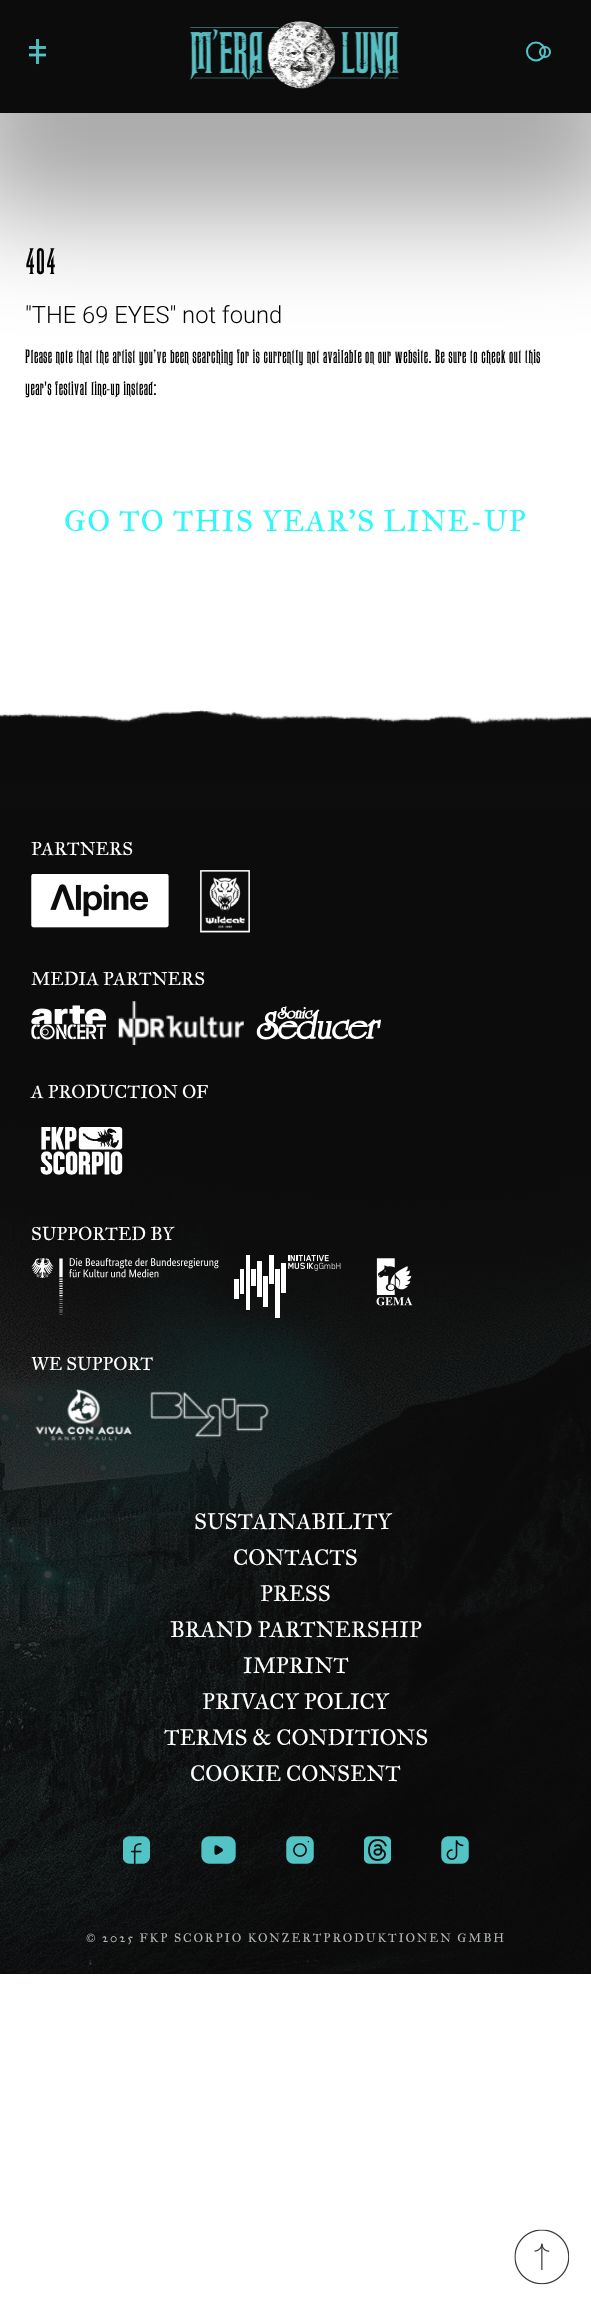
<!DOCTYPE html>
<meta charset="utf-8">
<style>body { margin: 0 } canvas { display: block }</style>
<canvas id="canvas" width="591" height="2320"></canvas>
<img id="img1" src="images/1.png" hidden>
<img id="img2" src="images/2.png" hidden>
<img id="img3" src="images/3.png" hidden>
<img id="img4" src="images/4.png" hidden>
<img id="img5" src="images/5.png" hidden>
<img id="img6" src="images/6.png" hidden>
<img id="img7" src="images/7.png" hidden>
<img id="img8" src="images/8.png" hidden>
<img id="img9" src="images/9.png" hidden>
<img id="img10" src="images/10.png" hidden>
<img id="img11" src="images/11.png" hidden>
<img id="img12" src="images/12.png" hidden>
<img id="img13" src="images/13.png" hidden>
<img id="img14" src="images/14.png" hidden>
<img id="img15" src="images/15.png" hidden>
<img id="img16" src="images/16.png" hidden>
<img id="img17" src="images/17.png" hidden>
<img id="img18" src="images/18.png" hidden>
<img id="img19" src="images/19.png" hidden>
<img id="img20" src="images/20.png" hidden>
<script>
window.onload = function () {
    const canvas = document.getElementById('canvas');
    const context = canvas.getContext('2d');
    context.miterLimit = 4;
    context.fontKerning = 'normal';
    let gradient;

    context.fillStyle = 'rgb(255, 255, 255)';
    context.fillRect(0, 0, 591, 2320);
    context.fillStyle = 'rgba(0, 0, 0, 0.35)';
    context.filter = 'blur(56px)';
    context.beginPath();
    context.rect(-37, 25, 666, 188);
    context.fill();
    context.filter = 'none';
    context.fillStyle = 'rgb(13, 12, 12)';
    context.fillRect(0, 0, 591, 113);
    context.fillStyle = 'rgb(77, 183, 184)';
    context.fillRect(29, 46, 17, 3);
    context.fillStyle = 'rgb(77, 184, 185)';
    context.fillRect(36, 39, 3, 25);
    context.fillStyle = 'rgb(82, 195, 196)';
    context.fillRect(36, 46, 3, 3);
    context.beginPath();
    context.moveTo(46, 55);
    context.lineTo(29, 55);
    context.strokeStyle = 'rgb(82, 196, 197)';
    context.lineWidth = 2.8;
    context.stroke();
    context.drawImage(document.getElementById('img1'), 189, 21, 210, 68);
    context.beginPath();
    context.arc(545, 52, 5, 0, 2 * Math.PI);
    context.lineWidth = 2.1;
    context.stroke();
    context.beginPath();
    context.arc(536, 51.5, 9, 0, 2 * Math.PI);
    context.stroke();
    context.fillStyle = 'rgb(13, 12, 12)';
    context.fillRect(0, 807, 591, 1167);
    context.drawImage(document.getElementById('img2'), 0, 1084, 591, 890);
    context.drawImage(document.getElementById('img3'), 0, 710, 591, 74);
    gradient = context.createLinearGradient(296, 784, 296, 1974);
    gradient.addColorStop(0, 'rgb(13, 12, 12)');
    gradient.addColorStop(1, 'rgba(13, 12, 12, 0.7)');
    context.fillStyle = gradient;
    context.fillRect(0, 784, 591, 1190);
    context.drawImage(document.getElementById('img4'), 31, 874, 138, 54);
    context.drawImage(document.getElementById('img5'), 200, 870, 50, 63);
    context.drawImage(document.getElementById('img6'), 31, 1005, 75, 35);
    context.drawImage(document.getElementById('img7'), 118, 1001, 126, 44);
    context.drawImage(document.getElementById('img8'), 256, 1006, 125, 34);
    context.drawImage(document.getElementById('img9'), 40, 1127, 83, 48);
    context.drawImage(document.getElementById('img10'), 31, 1258, 188, 57);
    context.drawImage(document.getElementById('img11'), 234, 1255, 107, 63);
    context.drawImage(document.getElementById('img12'), 376, 1258, 37, 48);
    context.drawImage(document.getElementById('img13'), 35, 1389, 97, 53);
    context.drawImage(document.getElementById('img14'), 150, 1391, 119, 47);
    context.drawImage(document.getElementById('img15'), 123, 1836, 27, 28);
    context.drawImage(document.getElementById('img16'), 201, 1836, 35, 28);
    context.drawImage(document.getElementById('img17'), 286, 1836, 28, 28);
    context.drawImage(document.getElementById('img18'), 364, 1836, 27, 28);
    context.drawImage(document.getElementById('img19'), 441, 1836, 28, 28);
    context.drawImage(document.getElementById('img20'), 514, 2229, 56, 56);
    context.font = '38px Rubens';
    context.fillStyle = 'rgb(0, 0, 0)';
    context.fillText('404', 25, 274);
    context.font = '300 23.75px Roboto';
    context.fillText('"THE 69 EYES" not found', 25, 323);
    context.font = '20px Rubens';
    context.fillText('Please note that the artist you’ve been searching for is currently not available on our website. Be sure to check out this', 25, 363);
    context.fillText('year\'s festival line-up instead:', 25, 395);
    context.letterSpacing = '1.25px';
    context.font = '30px IM FELL Great Primer';
    context.fillStyle = 'rgb(48, 247, 248)';
    context.fillText('GO TO THIS YEAR’S LINE-UP', 64, 531);
    context.letterSpacing = '0px';
    context.font = '18.75px IM FELL Great Primer';
    context.fillStyle = 'rgb(255, 255, 255)';
    context.fillText('PARTNERS', 31, 855);
    context.fillText('MEDIA PARTNERS', 31, 985);
    context.fillText('A PRODUCTION OF', 31, 1098);
    context.fillText('SUPPORTED BY', 31, 1240);
    context.fillText('WE SUPPORT', 31, 1370);
    context.font = '22.5px IM FELL Great Primer';
    context.fillText('SUSTAINABILITY', 194, 1529);
    context.fillText('CONTACTS', 233, 1565);
    context.fillText('PRESS', 260, 1601);
    context.fillText('BRAND PARTNERSHIP', 170, 1637);
    context.fillText('IMPRINT', 243, 1673);
    context.fillText('PRIVACY POLICY', 202, 1709);
    context.fillText('TERMS & CONDITIONS', 164, 1745);
    context.fillText('COOKIE CONSENT', 190, 1781);
    context.letterSpacing = '1.9px';
    context.font = '12.5px IM FELL Great Primer';
    context.fillStyle = 'rgb(183, 184, 184)';
    context.fillText('©', 86, 1942);
    context.fillText('2025 FKP SCORPIO KONZERTPRODUKTIONEN GMBH', 102, 1942);
};
</script>
